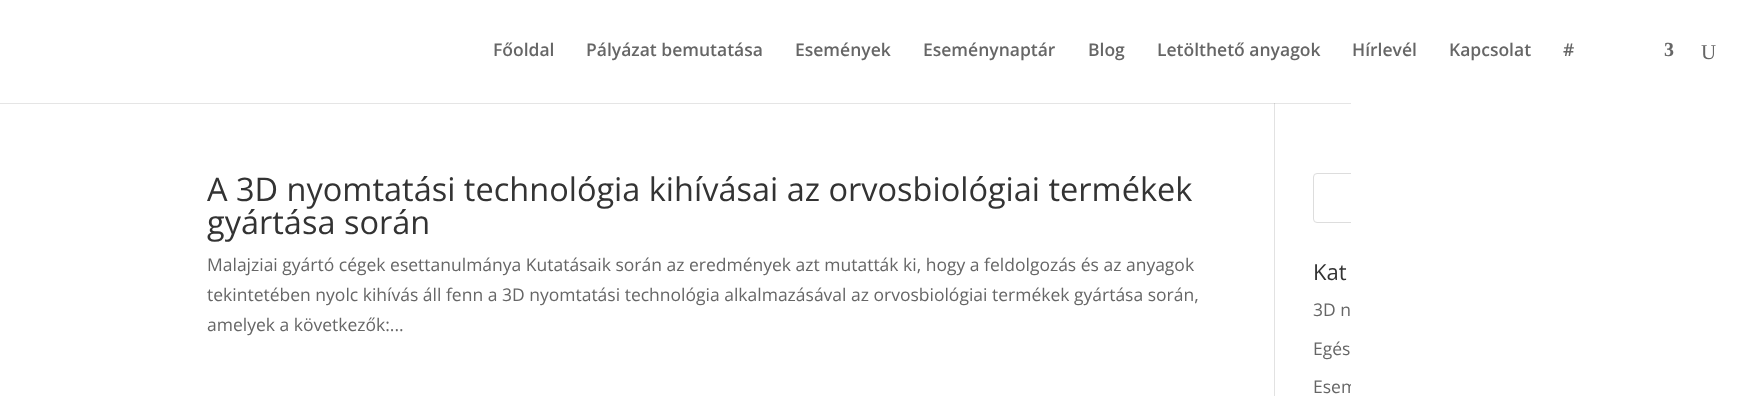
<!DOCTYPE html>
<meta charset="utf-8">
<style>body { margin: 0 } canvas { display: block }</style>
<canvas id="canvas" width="1763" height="396"></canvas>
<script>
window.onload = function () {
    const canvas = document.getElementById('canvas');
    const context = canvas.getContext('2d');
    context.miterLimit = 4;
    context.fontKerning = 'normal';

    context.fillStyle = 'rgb(255, 255, 255)';
    context.fillRect(0, 0, 1763, 396);
    context.fillStyle = 'rgb(226, 226, 226)';
    context.fillRect(1274, 100, 1, 296);
    context.fillStyle = 'rgba(0, 0, 0, 0.1)';
    context.beginPath();
    context.moveTo(0, 102);
    context.lineTo(0, 104);
    context.lineTo(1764, 104);
    context.lineTo(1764, 1);
    context.lineTo(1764, 102);
    context.closePath();
    context.fill();
    context.fillStyle = 'rgb(255, 255, 255)';
    context.fillRect(0, 100, 1763, 3);
    context.beginPath();
    context.roundRect(1313.5, 173.5, 242, 49, 3.5);
    context.strokeStyle = 'rgb(221, 221, 221)';
    context.stroke();
    context.font = '600 17.5px Open Sans';
    context.fillStyle = 'rgb(102, 102, 102)';
    context.fillText('Főoldal', 493, 56);
    context.fillText('Pályázat bemutatása', 586, 56);
    context.fillText('Események', 795, 56);
    context.fillText('Eseménynaptár', 923, 56);
    context.fillText('Blog', 1088, 56);
    context.fillText('Letölthető anyagok', 1157, 56);
    context.fillText('Hírlevél', 1352, 56);
    context.fillText('Kapcsolat', 1449, 56);
    context.fillText('#', 1563, 56);
    context.font = 'bold 20px Liberation Serif';
    context.fillText('3', 1664, 56);
    context.font = '21px Liberation Serif';
    context.fillText('U', 1701, 59);
    context.font = '32.5px Open Sans';
    context.fillStyle = 'rgb(51, 51, 51)';
    context.fillText('A 3D nyomtatási technológia kihívásai az orvosbiológiai termékek', 207, 201);
    context.fillText('gyártása során', 207, 234);
    context.font = '17.5px Open Sans';
    context.fillStyle = 'rgb(102, 102, 102)';
    context.fillText('Malajziai gyártó cégek esettanulmánya Kutatásaik során az eredmények azt mutatták ki, hogy a feldolgozás és az anyagok', 207, 271);
    context.fillText('tekintetében nyolc kihívás áll fenn a 3D nyomtatási technológia alkalmazásával az orvosbiológiai termékek gyártása során,', 207, 301);
    context.fillText('amelyek a következők:...', 207, 331);
    context.font = '22px Open Sans';
    context.fillStyle = 'rgb(51, 51, 51)';
    context.fillText('Kat', 1313, 280);
    context.font = '17.5px Open Sans';
    context.fillStyle = 'rgb(102, 102, 102)';
    context.fillText('3D n', 1313, 316);
    context.fillText('Egés', 1313, 355);
    context.fillText('Esem', 1313, 393);
    context.fillStyle = 'rgb(255, 255, 255)';
    context.fillRect(1351, 103, 412, 290);
};
</script>
